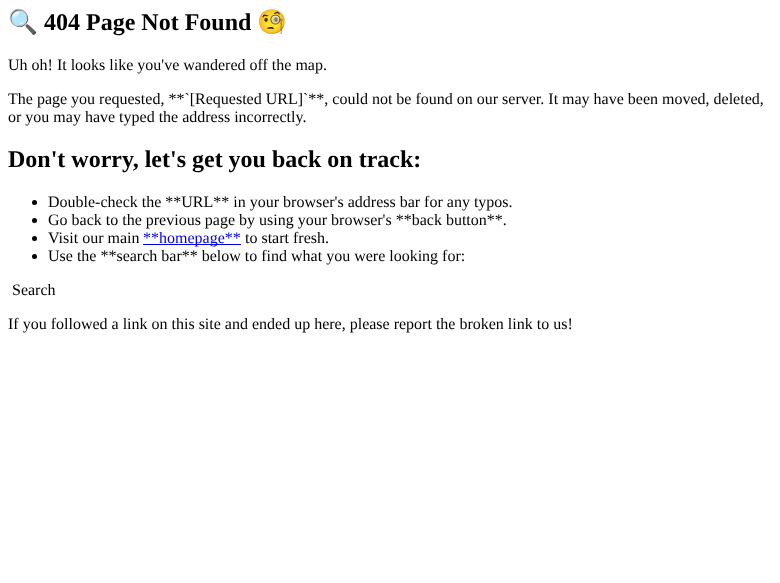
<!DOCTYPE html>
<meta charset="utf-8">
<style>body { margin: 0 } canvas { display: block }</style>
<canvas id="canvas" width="780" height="583"></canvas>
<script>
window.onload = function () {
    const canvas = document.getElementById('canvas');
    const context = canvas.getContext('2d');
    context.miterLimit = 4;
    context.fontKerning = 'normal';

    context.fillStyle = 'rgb(255, 255, 255)';
    context.fillRect(0, 0, 780, 583);
    context.fillStyle = 'rgb(0, 0, 0)';
    context.beginPath();
    context.arc(34.5, 202.5, 2.5, 0, 2 * Math.PI);
    context.fill();
    context.beginPath();
    context.arc(34.5, 220.5, 2.5, 0, 2 * Math.PI);
    context.fill();
    context.beginPath();
    context.arc(34.5, 238.5, 2.5, 0, 2 * Math.PI);
    context.fill();
    context.fillStyle = 'rgb(0, 0, 238)';
    context.fillRect(143, 244, 98, 1);
    context.fillStyle = 'rgb(0, 0, 0)';
    context.beginPath();
    context.arc(34.5, 256.5, 2.5, 0, 2 * Math.PI);
    context.fill();
    context.font = 'bold 24px Noto Color Emoji';
    context.fillText('🔍', 8, 30);
    context.font = 'bold 24px Liberation Serif';
    context.fillText('404 Page Not Found', 44, 30);
    context.font = 'bold 24px Noto Color Emoji';
    context.fillText('🧐', 257, 30);
    context.font = '16px Liberation Serif';
    context.fillText('Uh oh! It looks like you\'ve wandered off the map.', 8, 70);
    context.fillText('The page you requested, **`[Requested URL]`**, could not be found on our server. It may have been moved, deleted,', 8, 104);
    context.fillText('or you may have typed the address incorrectly.', 8, 122);
    context.font = 'bold 24px Liberation Serif';
    context.fillText('Don\'t worry, let\'s get you back on track:', 8, 167);
    context.font = '16px Liberation Serif';
    context.fillText('Double-check the **URL** in your browser\'s address bar for any typos.', 48, 207);
    context.fillText('Go back to the previous page by using your browser\'s **back button**.', 48, 225);
    context.fillText('Visit our main', 48, 243);
    context.fillStyle = 'rgb(0, 0, 238)';
    context.fillText('**homepage**', 143, 243);
    context.fillStyle = 'rgb(0, 0, 0)';
    context.fillText('to start fresh.', 245, 243);
    context.fillText('Use the **search bar** below to find what you were looking for:', 48, 261);
    context.fillText('Search', 12, 295);
    context.fillText('If you followed a link on this site and ended up here, please report the broken link to us!', 8, 329);
};
</script>
